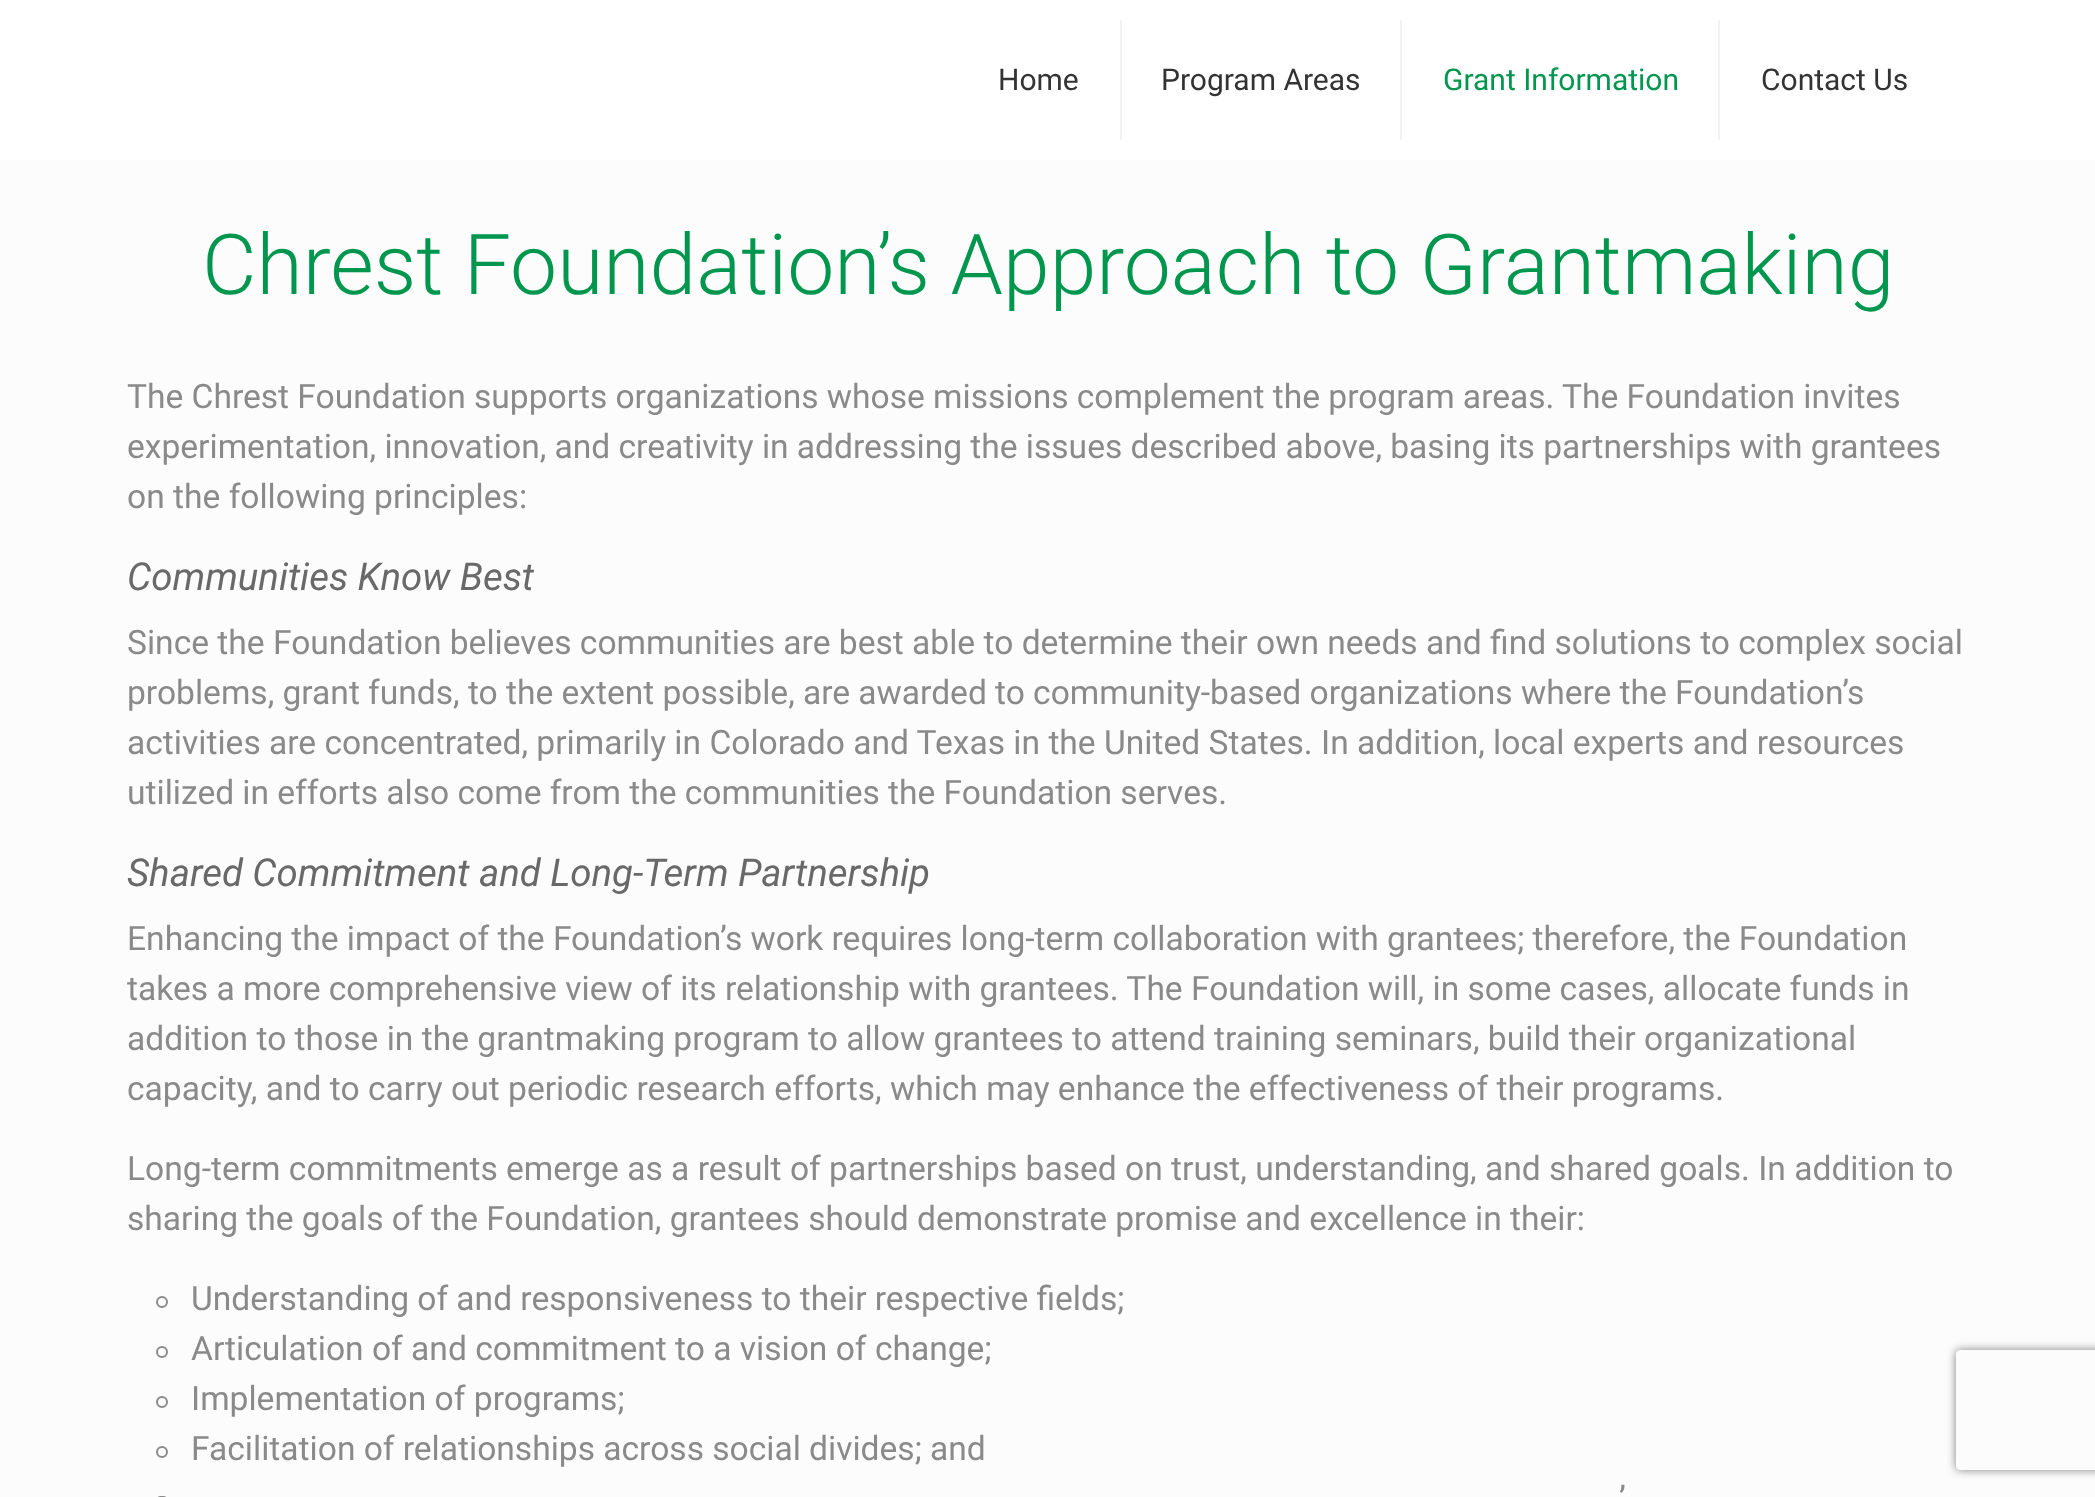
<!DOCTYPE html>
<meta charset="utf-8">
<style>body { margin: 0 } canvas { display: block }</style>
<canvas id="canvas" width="2095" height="1497"></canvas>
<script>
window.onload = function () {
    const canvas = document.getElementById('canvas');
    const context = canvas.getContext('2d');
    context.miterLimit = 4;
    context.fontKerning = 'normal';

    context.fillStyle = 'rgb(252, 252, 252)';
    context.fillRect(0, 0, 2095, 1497);
    context.fillStyle = 'rgb(255, 255, 255)';
    context.fillRect(0, 0, 2095, 160);
    context.fillStyle = 'rgb(242, 242, 242)';
    context.fillRect(1120, 20, 2, 120);
    context.fillRect(1400, 20, 2, 120);
    context.fillRect(1718, 20, 2, 120);
    context.beginPath();
    context.arc(162, 1302, 5, 0, 2 * Math.PI);
    context.strokeStyle = 'rgb(138, 138, 138)';
    context.lineWidth = 2;
    context.stroke();
    context.beginPath();
    context.arc(162, 1352, 5, 0, 2 * Math.PI);
    context.stroke();
    context.beginPath();
    context.arc(162, 1402, 5, 0, 2 * Math.PI);
    context.stroke();
    context.beginPath();
    context.arc(162, 1452, 5, 0, 2 * Math.PI);
    context.stroke();
    context.beginPath();
    context.roundRect(157, 1497, 10, 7, 5);
    context.stroke();
    context.save();
    context.beginPath();
    context.moveTo(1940, 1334);
    context.lineTo(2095, 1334);
    context.lineTo(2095, 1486);
    context.lineTo(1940, 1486);
    context.closePath();
    context.moveTo(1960, 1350);
    context.lineTo(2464, 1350);
    context.bezierCurveTo(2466, 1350, 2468, 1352, 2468, 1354);
    context.lineTo(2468, 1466);
    context.bezierCurveTo(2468, 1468, 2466, 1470, 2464, 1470);
    context.lineTo(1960, 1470);
    context.bezierCurveTo(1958, 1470, 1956, 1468, 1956, 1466);
    context.lineTo(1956, 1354);
    context.bezierCurveTo(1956, 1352, 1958, 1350, 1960, 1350);
    context.closePath();
    context.clip('evenodd');
    context.fillStyle = 'rgb(128, 128, 128)';
    context.filter = 'blur(5px)';
    context.beginPath();
    context.roundRect(1956, 1350, 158, 120, 4);
    context.fill();
    context.filter = 'none';
    context.restore();
    context.font = '30px Roboto';
    context.fillStyle = 'rgb(51, 51, 51)';
    context.fillText('Home', 998, 90);
    context.fillText('Program Areas', 1161, 90);
    context.fillStyle = 'rgb(0, 150, 78)';
    context.fillText('Grant Information', 1443, 90);
    context.fillStyle = 'rgb(51, 51, 51)';
    context.fillText('Contact Us', 1761, 90);
    context.font = '300 84px Roboto';
    context.fillStyle = 'rgb(0, 150, 78)';
    context.fillText('Chrest Foundation’s Approach to Grantmaking', 202, 294);
    context.wordSpacing = '-0.1px';
    context.font = '33.6px Roboto';
    context.fillStyle = 'rgb(138, 138, 138)';
    context.fillText('The Chrest Foundation supports organizations whose missions complement the program areas. The Foundation invites', 127, 408);
    context.fillText('experimentation, innovation, and creativity in addressing the issues described above, basing its partnerships with grantees', 127, 458);
    context.wordSpacing = '0px';
    context.fillText('on the following principles:', 127, 508);
    context.font = 'italic 38.4px Roboto';
    context.fillStyle = 'rgb(105, 105, 105)';
    context.fillText('Communities Know Best', 127, 590);
    context.font = '33.6px Roboto';
    context.fillStyle = 'rgb(138, 138, 138)';
    context.fillText('Since the Foundation believes communities are best able to determine their own needs and find solutions to complex social', 127, 654);
    context.wordSpacing = '-0.1px';
    context.fillText('problems, grant funds, to the extent possible, are awarded to community-based organizations where the Foundation’s', 127, 704);
    context.wordSpacing = '0px';
    context.fillText('activities are concentrated, primarily in Colorado and Texas in the United States. In addition, local experts and resources', 127, 754);
    context.wordSpacing = '-0.1px';
    context.fillText('utilized in efforts also come from the communities the Foundation serves.', 127, 804);
    context.wordSpacing = '0px';
    context.font = 'italic 38.4px Roboto';
    context.fillStyle = 'rgb(105, 105, 105)';
    context.fillText('Shared Commitment and Long-Term Partnership', 127, 886);
    context.wordSpacing = '-0.1px';
    context.font = '33.6px Roboto';
    context.fillStyle = 'rgb(138, 138, 138)';
    context.fillText('Enhancing the impact of the Foundation’s work requires long-term collaboration with grantees; therefore, the Foundation', 127, 950);
    context.wordSpacing = '0px';
    context.fillText('takes a more comprehensive view of its relationship with grantees. The Foundation will, in some cases, allocate funds in', 127, 1000);
    context.fillText('addition to those in the grantmaking program to allow grantees to attend training seminars, build their organizational', 127, 1050);
    context.fillText('capacity, and to carry out periodic research efforts, which may enhance the effectiveness of their programs.', 127, 1100);
    context.fillText('Long-term commitments emerge as a result of partnerships based on trust, understanding, and shared goals. In addition to', 127, 1180);
    context.wordSpacing = '-0.1px';
    context.fillText('sharing the goals of the Foundation, grantees should demonstrate promise and excellence in their:', 127, 1230);
    context.fillText('Understanding of and responsiveness to their respective fields;', 191, 1310);
    context.wordSpacing = '0px';
    context.fillText('Articulation of and commitment to a vision of change;', 191, 1360);
    context.fillText('Implementation of programs;', 191, 1410);
    context.wordSpacing = '-0.1px';
    context.fillText('Facilitation of relationships across social divides; and', 191, 1460);
    context.wordSpacing = '0px';
    context.fillText('’', 1619, 1510);
};
</script>
